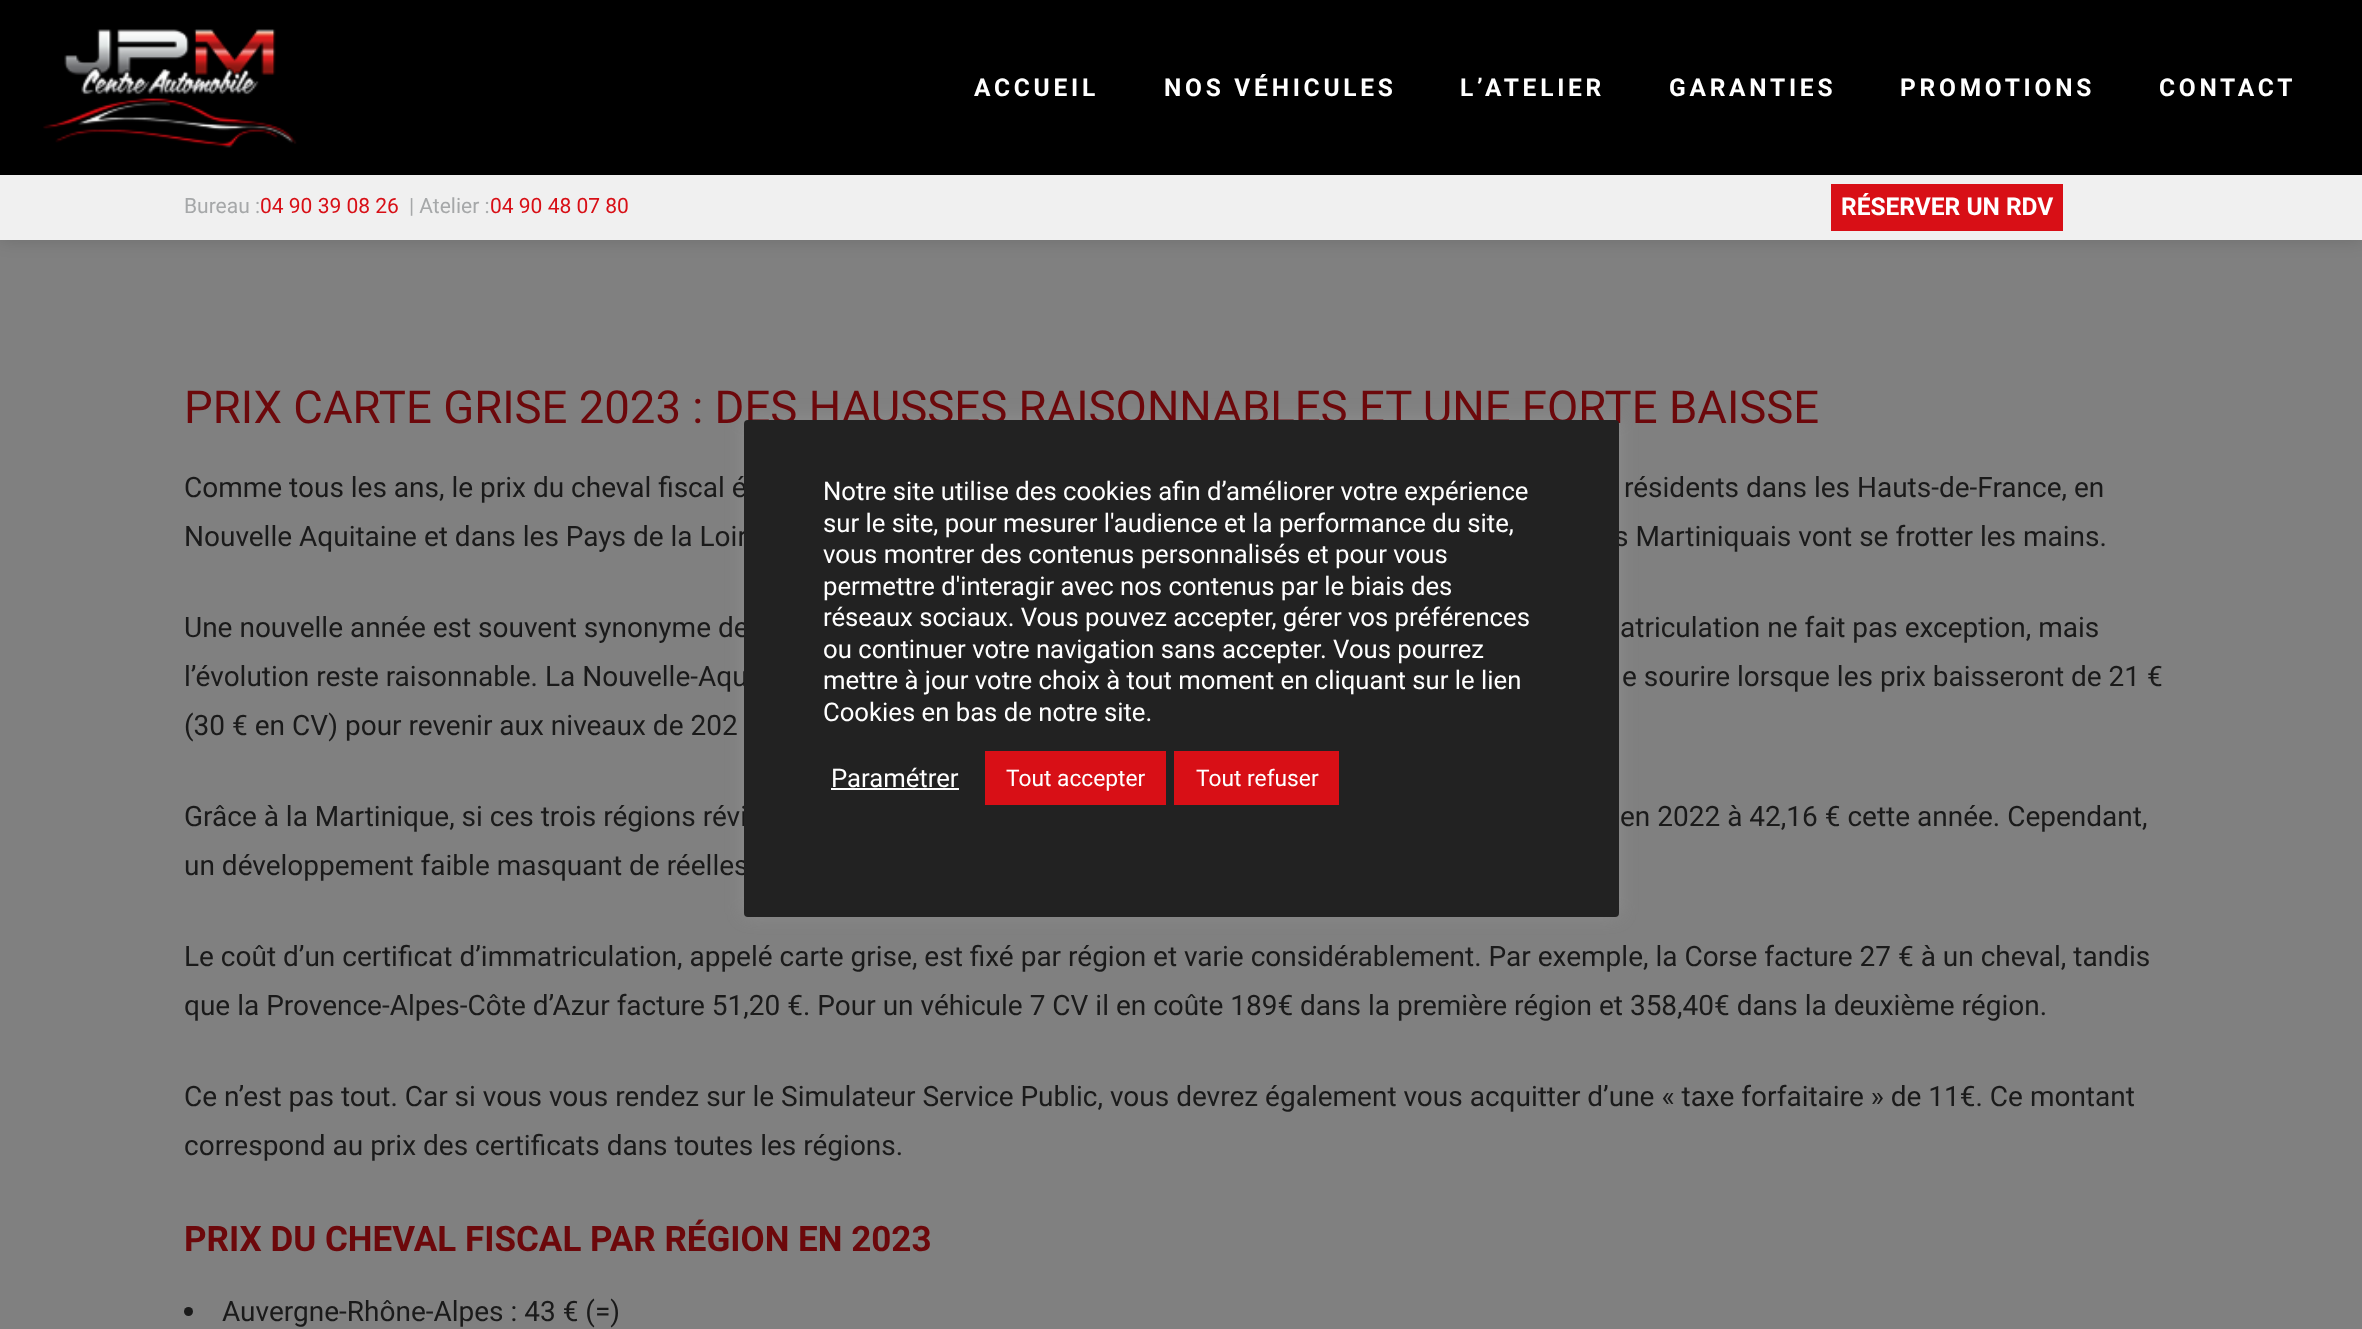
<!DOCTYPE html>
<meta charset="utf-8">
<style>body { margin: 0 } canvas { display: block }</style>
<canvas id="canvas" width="2362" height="1329"></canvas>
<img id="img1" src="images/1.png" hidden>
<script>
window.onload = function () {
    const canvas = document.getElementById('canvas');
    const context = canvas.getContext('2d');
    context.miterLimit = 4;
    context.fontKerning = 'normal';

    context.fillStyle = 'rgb(128, 128, 128)';
    context.fillRect(0, 0, 2362, 1329);
    context.fillStyle = 'rgba(0, 0, 0, 0.15)';
    context.filter = 'blur(9px)';
    context.beginPath();
    context.rect(0, 0, 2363, 240);
    context.fill();
    context.filter = 'none';
    context.fillStyle = 'rgb(0, 0, 0)';
    context.fillRect(0, 0, 2362, 175);
    context.drawImage(document.getElementById('img1'), 43, 29, 254, 119);
    context.fillStyle = 'rgb(240, 240, 240)';
    context.fillRect(0, 175, 2362, 65);
    context.fillStyle = 'rgb(216, 15, 22)';
    context.fillRect(1831, 184, 232, 47);
    context.fillStyle = 'rgb(26, 26, 26)';
    context.beginPath();
    context.arc(188.5, 1311.5, 4.5, 0, 2 * Math.PI);
    context.fill();
    context.fillStyle = 'rgba(172, 171, 171, 0.3)';
    context.filter = 'blur(9px)';
    context.beginPath();
    context.roundRect(744, 418, 875, 497, 4);
    context.fill();
    context.filter = 'none';
    context.letterSpacing = '3.75px';
    context.font = 'bold 24.5px Roboto';
    context.fillStyle = 'rgb(255, 255, 255)';
    context.fillText('ACCUEIL', 974, 96);
    context.fillText('NOS VÉHICULES', 1164, 96);
    context.fillText('L’ATELIER', 1460, 96);
    context.fillText('GARANTIES', 1669, 96);
    context.fillText('PROMOTIONS', 1900, 96);
    context.fillText('CONTACT', 2159, 96);
    context.letterSpacing = '0px';
    context.font = '21px Roboto';
    context.fillStyle = 'rgb(166, 168, 169)';
    context.fillText('Bureau :', 184, 213);
    context.fillStyle = 'rgb(216, 15, 22)';
    context.fillText('04 90 39 08 26', 260, 213);
    context.fillStyle = 'rgb(166, 168, 169)';
    context.fillText('| Atelier :', 409, 213);
    context.fillStyle = 'rgb(216, 15, 22)';
    context.fillText('04 90 48 07 80', 490, 213);
    context.font = 'bold 24.5px Roboto';
    context.fillStyle = 'rgb(255, 255, 255)';
    context.fillText('RÉSERVER UN RDV', 1841, 215);
    context.font = '45.5px Roboto';
    context.fillStyle = 'rgb(108, 8, 11)';
    context.fillText('PRIX CARTE GRISE 2023 : DES HAUSSES RAISONNABLES ET UNE FORTE BAISSE', 184, 423);
    context.font = '28px Roboto';
    context.fillStyle = 'rgb(26, 26, 26)';
    context.fillText('Comme tous les ans, le prix du cheval fiscal é', 184, 497);
    context.fillText('résidents dans les Hauts-de-France, en', 1624, 497);
    context.fillText('Nouvelle Aquitaine et dans les Pays de la Loir', 184, 546);
    context.fillText('s Martiniquais vont se frotter les mains.', 1614, 546);
    context.fillText('Une nouvelle année est souvent synonyme de', 184, 637);
    context.fillText('atriculation ne fait pas exception, mais', 1620, 637);
    context.fillText('l’évolution reste raisonnable. La Nouvelle-Aqu', 184, 686);
    context.fillText('e sourire lorsque les prix baisseront de 21 €', 1622, 686);
    context.fillText('(30 € en CV) pour revenir aux niveaux de 202', 184, 735);
    context.fillText('Grâce à la Martinique, si ces trois régions révi', 184, 826);
    context.fillText('en 2022 à 42,16 € cette année. Cependant,', 1620, 826);
    context.fillText('un développement faible masquant de réelles', 184, 875);
    context.fillText('Le coût d’un certificat d’immatriculation, appelé carte grise, est fixé par région et varie considérablement. Par exemple, la Corse facture 27 € à un cheval, tandis', 184, 966);
    context.fillText('que la Provence-Alpes-Côte d’Azur facture 51,20 €. Pour un véhicule 7 CV il en coûte 189€ dans la première région et 358,40€ dans la deuxième région.', 184, 1015);
    context.fillText('Ce n’est pas tout. Car si vous vous rendez sur le Simulateur Service Public, vous devrez également vous acquitter d’une « taxe forfaitaire » de 11€. Ce montant', 184, 1106);
    context.fillText('correspond au prix des certificats dans toutes les régions.', 184, 1155);
    context.font = 'bold 35px Roboto';
    context.fillStyle = 'rgb(108, 8, 11)';
    context.fillText('PRIX DU CHEVAL FISCAL PAR RÉGION EN 2023', 184, 1251);
    context.font = '28px Roboto';
    context.fillStyle = 'rgb(26, 26, 26)';
    context.fillText('Auvergne-Rhône-Alpes : 43 € (=)', 222, 1321);
    context.fillStyle = 'rgb(34, 34, 34)';
    context.beginPath();
    context.roundRect(744, 420, 875, 497, 4);
    context.fill();
    context.font = '25.7px Roboto';
    context.fillStyle = 'rgb(255, 255, 255)';
    context.fillText('Notre site utilise des cookies afin d’améliorer votre expérience', 823, 500);
    context.fillText('sur le site, pour mesurer l\'audience et la performance du site,', 823, 532);
    context.fillText('vous montrer des contenus personnalisés et pour vous', 823, 563);
    context.fillText('permettre d\'interagir avec nos contenus par le biais des', 823, 595);
    context.fillText('réseaux sociaux. Vous pouvez accepter, gérer vos préférences', 823, 626);
    context.fillText('ou continuer votre navigation sans accepter. Vous pourrez', 823, 658);
    context.fillText('mettre à jour votre choix à tout moment en cliquant sur le lien', 823, 689);
    context.fillText('Cookies en bas de notre site.', 823, 721);
    context.fillText('Paramétrer', 831, 787);
    context.fillRect(831, 788, 128, 2);
    context.fillStyle = 'rgb(216, 15, 22)';
    context.fillRect(985, 751, 181, 54);
    context.font = '22.75px Roboto';
    context.fillStyle = 'rgb(255, 255, 255)';
    context.fillText('Tout accepter', 1006, 786);
    context.fillStyle = 'rgb(216, 15, 22)';
    context.fillRect(1174, 751, 165, 54);
    context.fillStyle = 'rgb(255, 255, 255)';
    context.fillText('Tout refuser', 1196, 786);
};
</script>
